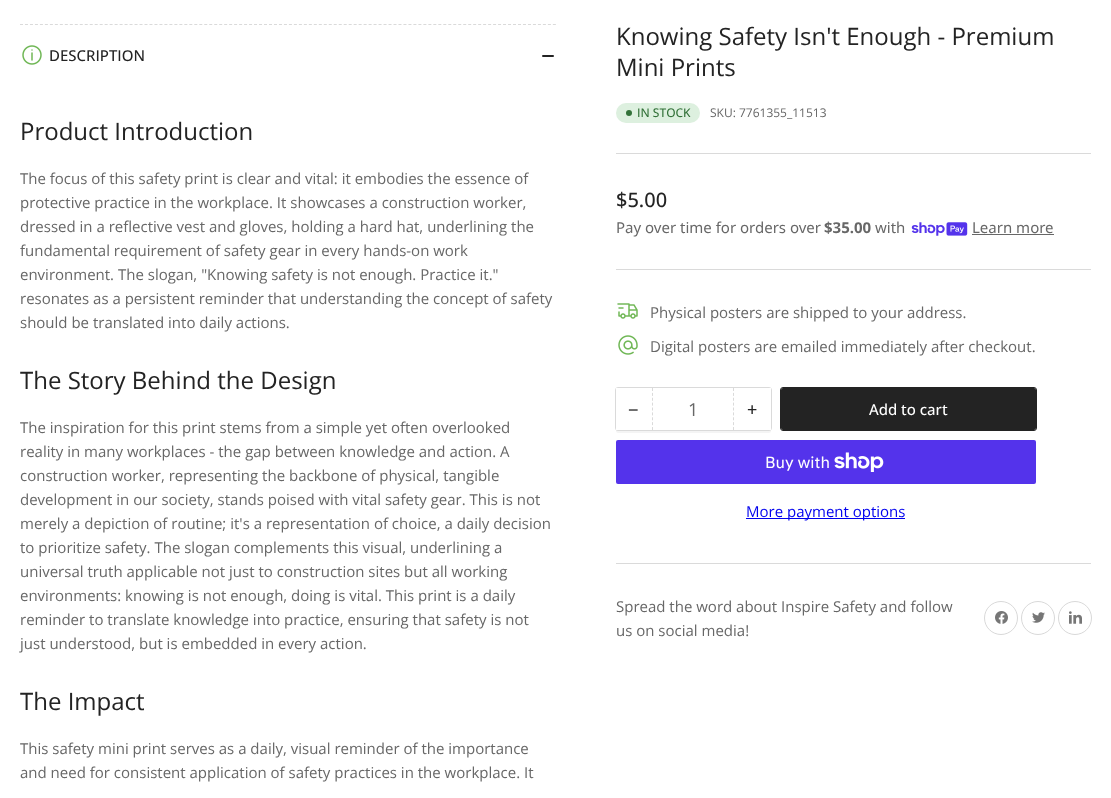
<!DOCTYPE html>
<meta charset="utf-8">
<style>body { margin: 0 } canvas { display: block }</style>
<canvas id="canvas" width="1111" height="798"></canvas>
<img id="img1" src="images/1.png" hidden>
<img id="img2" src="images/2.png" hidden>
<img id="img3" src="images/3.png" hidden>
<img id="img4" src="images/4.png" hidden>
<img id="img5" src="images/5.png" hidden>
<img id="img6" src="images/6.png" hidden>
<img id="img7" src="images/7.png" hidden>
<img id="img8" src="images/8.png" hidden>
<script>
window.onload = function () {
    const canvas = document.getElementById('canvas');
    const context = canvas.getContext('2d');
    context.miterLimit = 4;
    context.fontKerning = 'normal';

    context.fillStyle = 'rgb(255, 255, 255)';
    context.fillRect(0, 0, 1111, 798);
    context.beginPath();
    context.moveTo(20, 24.5);
    context.lineTo(556, 24.5);
    context.strokeStyle = 'rgb(218, 218, 218)';
    context.setLineDash([3, 1.98]);
    context.stroke();
    context.drawImage(document.getElementById('img1'), 22, 45, 20, 20);
    context.fillStyle = 'rgb(35, 35, 35)';
    context.beginPath();
    context.roundRect(542, 55, 8, 2, 1);
    context.fill();
    context.beginPath();
    context.roundRect(547, 55, 7, 2, 1);
    context.fill();
    context.fillStyle = 'rgb(218, 218, 218)';
    context.fillRect(616, 153, 475, 1);
    context.fillStyle = 'rgb(221, 240, 223)';
    context.beginPath();
    context.roundRect(616, 103, 84, 20, 10);
    context.fill();
    context.fillStyle = 'rgb(51, 114, 57)';
    context.beginPath();
    context.arc(629, 113, 3, 0, 2 * Math.PI);
    context.fill();
    context.drawImage(document.getElementById('img2'), 911, 222, 57, 14);
    context.fillStyle = 'rgb(103, 103, 103)';
    context.fillRect(972, 234, 82, 1);
    context.fillStyle = 'rgb(218, 218, 218)';
    context.fillRect(616, 269, 475, 1);
    context.drawImage(document.getElementById('img3'), 617, 303, 21, 16);
    context.drawImage(document.getElementById('img4'), 618, 335, 20, 20);
    context.fillStyle = 'rgb(244, 244, 244)';
    context.beginPath();
    context.moveTo(616, 428);
    context.lineTo(616, 431);
    context.bezierCurveTo(616, 432, 617, 433, 618, 433);
    context.lineTo(769, 433);
    context.bezierCurveTo(770, 433, 771, 432, 771, 431);
    context.lineTo(771, 428);
    context.bezierCurveTo(771, 429, 770, 430, 769, 430);
    context.lineTo(618, 430);
    context.bezierCurveTo(617, 430, 616, 429, 616, 428);
    context.closePath();
    context.fill();
    context.beginPath();
    context.roundRect(615.5, 387.5, 156, 43, 2.5);
    context.setLineDash([]);
    context.stroke();
    context.fillStyle = 'rgb(255, 255, 255)';
    context.fillRect(616, 388, 2, 42);
    context.beginPath();
    context.moveTo(733.5, 388);
    context.lineTo(733.5, 430);
    context.setLineDash([3, 1.88]);
    context.stroke();
    context.beginPath();
    context.moveTo(652.5, 388);
    context.lineTo(652.5, 430);
    context.stroke();
    context.fillRect(769, 388, 2, 42);
    context.beginPath();
    context.roundRect(780.5, 387.5, 256, 43, 2.5);
    context.strokeStyle = 'rgb(35, 35, 35)';
    context.setLineDash([]);
    context.stroke();
    context.fillStyle = 'rgb(35, 35, 35)';
    context.beginPath();
    context.roundRect(781, 388, 255, 42, 2);
    context.fill();
    context.fillStyle = 'rgb(84, 51, 235)';
    context.beginPath();
    context.roundRect(616, 440, 420, 44, 2);
    context.fill();
    context.drawImage(document.getElementById('img5'), 834, 452, 50, 20);
    context.fillStyle = 'rgb(0, 0, 238)';
    context.fillRect(746, 518, 159, 1);
    context.fillStyle = 'rgb(218, 218, 218)';
    context.fillRect(616, 563, 475, 1);
    context.beginPath();
    context.arc(1001, 618, 16.5, 0, 2 * Math.PI);
    context.strokeStyle = 'rgb(217, 217, 217)';
    context.stroke();
    context.drawImage(document.getElementById('img6'), 995, 611, 13, 13);
    context.beginPath();
    context.arc(1038, 618, 16.5, 0, 2 * Math.PI);
    context.stroke();
    context.drawImage(document.getElementById('img7'), 1032, 612, 13, 11);
    context.beginPath();
    context.arc(1075, 618, 16.5, 0, 2 * Math.PI);
    context.stroke();
    context.drawImage(document.getElementById('img8'), 1069, 611, 13, 13);
    context.font = '500 15px Open Sans';
    context.fillStyle = 'rgb(35, 35, 35)';
    context.fillText('DESCRIPTION', 49, 61);
    context.font = '24px Open Sans';
    context.fillText('Product Introduction', 20, 140);
    context.font = '15px Open Sans';
    context.fillStyle = 'rgb(103, 103, 103)';
    context.fillText('The focus of this safety print is clear and vital: it embodies the essence of', 20, 184);
    context.fillText('protective practice in the workplace. It showcases a construction worker,', 20, 208);
    context.fillText('dressed in a reflective vest and gloves, holding a hard hat, underlining the', 20, 232);
    context.fillText('fundamental requirement of safety gear in every hands-on work', 20, 256);
    context.fillText('environment. The slogan, "Knowing safety is not enough. Practice it."', 20, 280);
    context.fillText('resonates as a persistent reminder that understanding the concept of safety', 20, 304);
    context.fillText('should be translated into daily actions.', 20, 328);
    context.font = '24px Open Sans';
    context.fillStyle = 'rgb(35, 35, 35)';
    context.fillText('The Story Behind the Design', 20, 389);
    context.font = '15px Open Sans';
    context.fillStyle = 'rgb(103, 103, 103)';
    context.fillText('The inspiration for this print stems from a simple yet often overlooked', 20, 433);
    context.fillText('reality in many workplaces - the gap between knowledge and action. A', 20, 457);
    context.fillText('construction worker, representing the backbone of physical, tangible', 20, 481);
    context.fillText('development in our society, stands poised with vital safety gear. This is not', 20, 505);
    context.fillText('merely a depiction of routine; it\'s a representation of choice, a daily decision', 20, 529);
    context.fillText('to prioritize safety. The slogan complements this visual, underlining a', 20, 553);
    context.fillText('universal truth applicable not just to construction sites but all working', 20, 577);
    context.fillText('environments: knowing is not enough, doing is vital. This print is a daily', 20, 601);
    context.fillText('reminder to translate knowledge into practice, ensuring that safety is not', 20, 625);
    context.fillText('just understood, but is embedded in every action.', 20, 649);
    context.font = '24px Open Sans';
    context.fillStyle = 'rgb(35, 35, 35)';
    context.fillText('The Impact', 20, 710);
    context.font = '15px Open Sans';
    context.fillStyle = 'rgb(103, 103, 103)';
    context.fillText('This safety mini print serves as a daily, visual reminder of the importance', 20, 754);
    context.fillText('and need for consistent application of safety practices in the workplace. It', 20, 778);
    context.font = '24px Open Sans';
    context.fillStyle = 'rgb(35, 35, 35)';
    context.fillText('Knowing Safety Isn\'t Enough - Premium', 616, 45);
    context.fillText('Mini Prints', 616, 76);
    context.font = '500 12px Open Sans';
    context.fillStyle = 'rgb(51, 114, 57)';
    context.fillText('IN STOCK', 637, 117);
    context.font = '12px Open Sans';
    context.fillStyle = 'rgb(103, 103, 103)';
    context.fillText('SKU: 7761355_11513', 710, 117);
    context.font = '500 20px Open Sans';
    context.fillStyle = 'rgb(35, 35, 35)';
    context.fillText('$5.00', 616, 207);
    context.font = '15px Noto Sans';
    context.fillStyle = 'rgb(103, 103, 103)';
    context.fillText('Pay over time for orders over', 616, 233);
    context.font = 'bold 15px Noto Sans';
    context.fillText('$35.00', 824, 233);
    context.font = '15px Noto Sans';
    context.fillText('with', 875, 233);
    context.fillText('Learn more', 972, 233);
    context.font = '15px Open Sans';
    context.fillText('Physical posters are shipped to your address.', 650, 318);
    context.fillText('Digital posters are emailed immediately after checkout.', 650, 352);
    context.font = '18px Liberation Sans';
    context.fillStyle = 'rgb(35, 35, 35)';
    context.fillText('−', 628, 416);
    context.font = '18px Open Sans';
    context.fillStyle = 'rgb(103, 103, 103)';
    context.fillText('1', 688, 416);
    context.font = '500 18px Open Sans';
    context.fillStyle = 'rgb(35, 35, 35)';
    context.fillText('+', 747, 416);
    context.font = '500 15px Open Sans';
    context.fillStyle = 'rgb(255, 255, 255)';
    context.fillText('Add to cart', 869, 415);
    context.font = '16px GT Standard';
    context.fillText('Buy with', 765, 468);
    context.font = '15px Open Sans';
    context.fillStyle = 'rgb(0, 0, 238)';
    context.fillText('More payment options', 746, 517);
    context.fillStyle = 'rgb(103, 103, 103)';
    context.fillText('Spread the word about Inspire Safety and follow', 616, 612);
    context.fillText('us on social media!', 616, 636);
};
</script>
